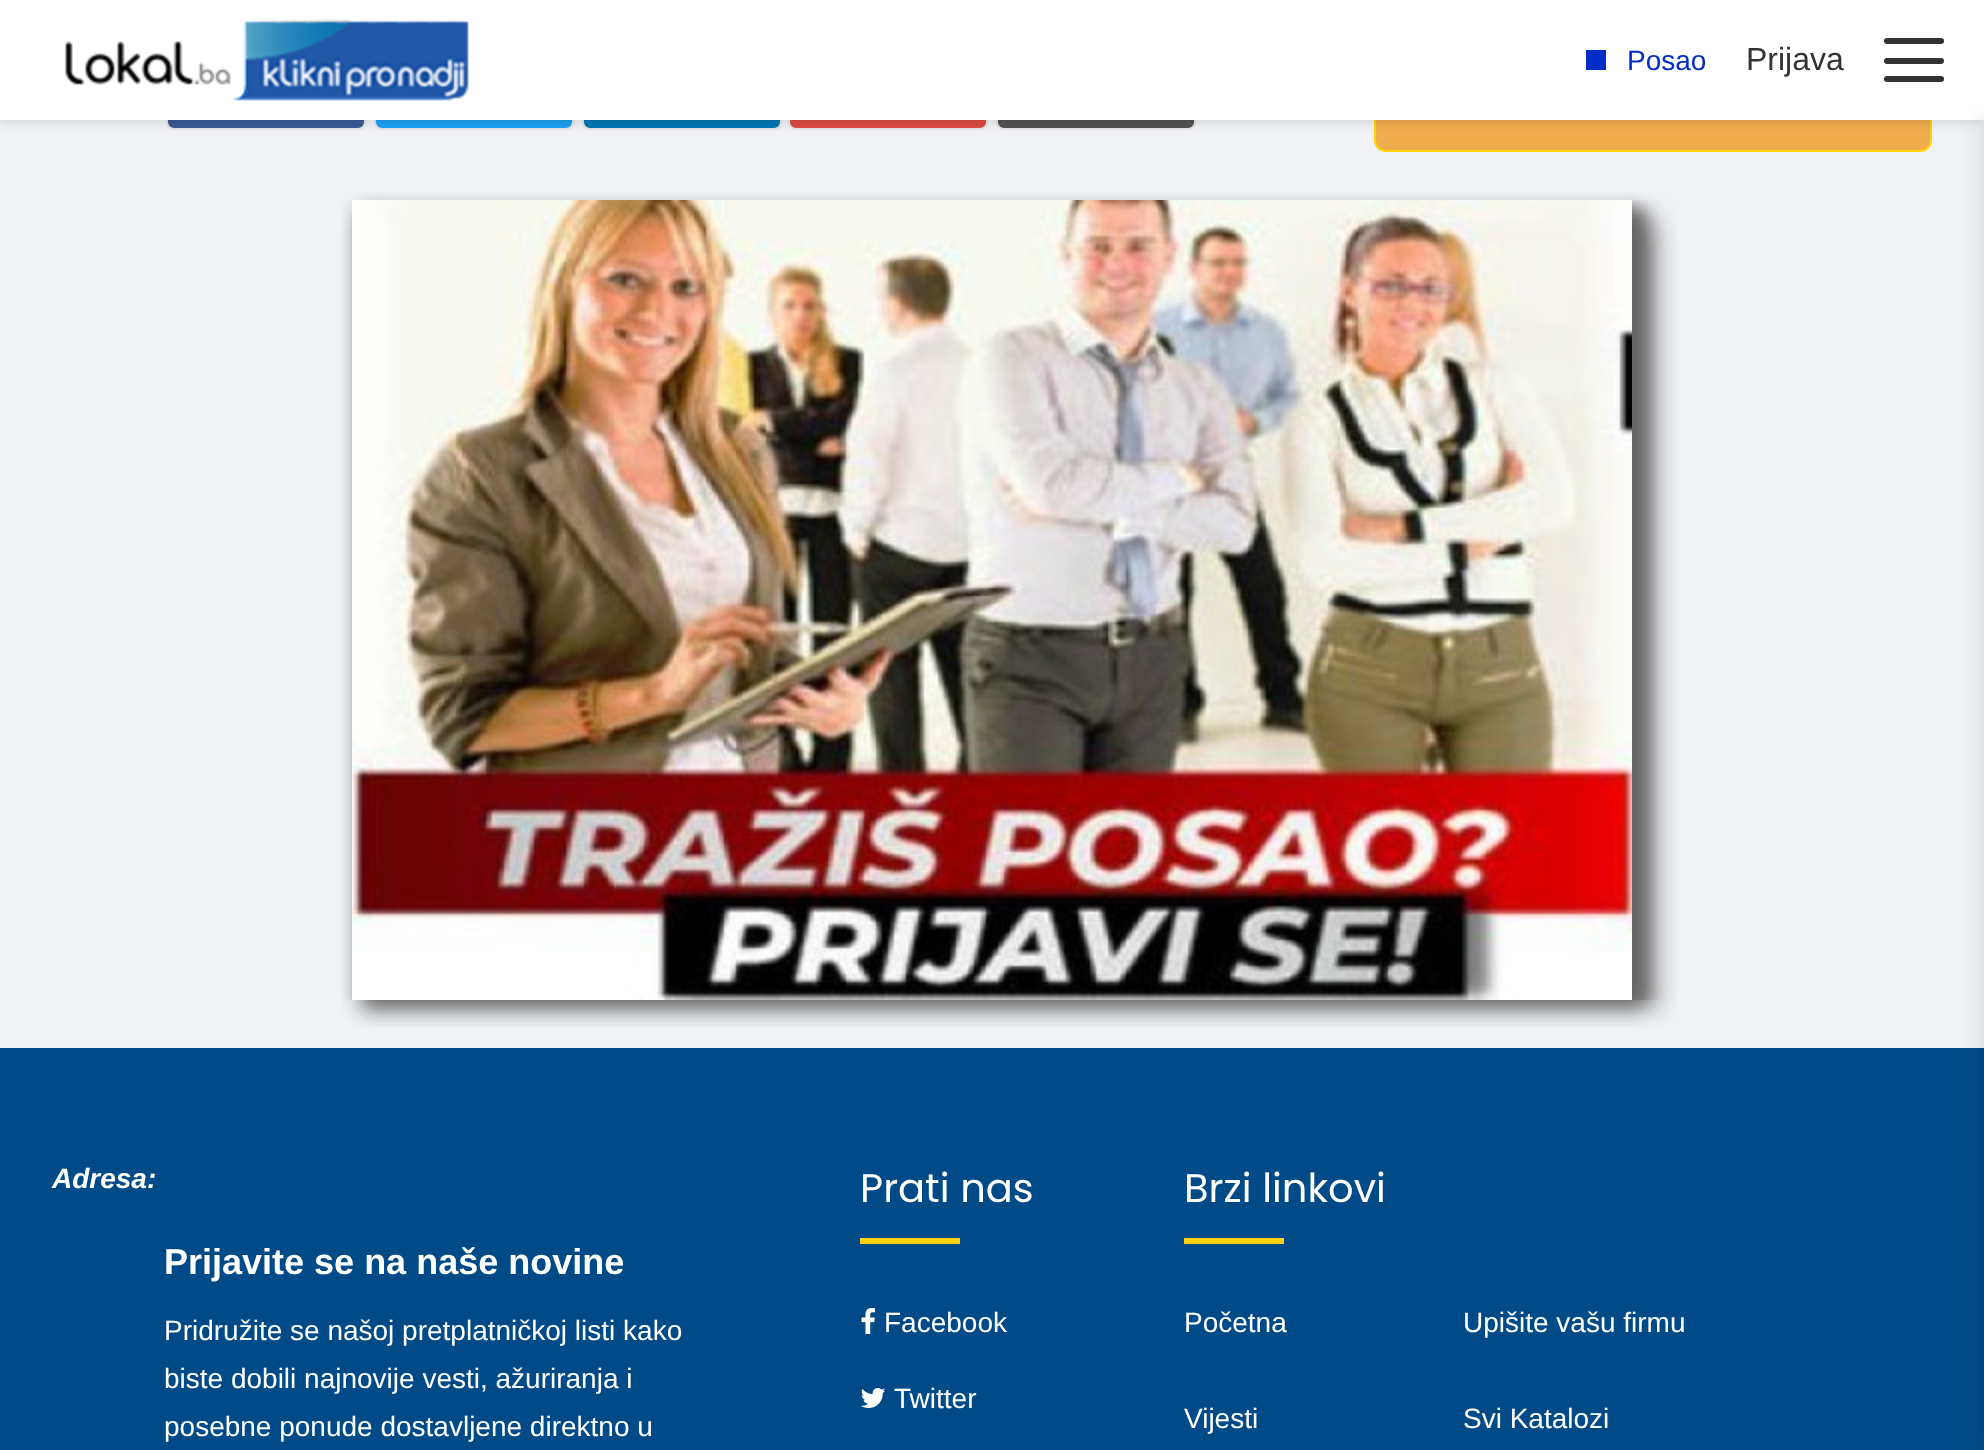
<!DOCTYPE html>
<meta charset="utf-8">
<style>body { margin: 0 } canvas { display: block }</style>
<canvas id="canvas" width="1984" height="1450"></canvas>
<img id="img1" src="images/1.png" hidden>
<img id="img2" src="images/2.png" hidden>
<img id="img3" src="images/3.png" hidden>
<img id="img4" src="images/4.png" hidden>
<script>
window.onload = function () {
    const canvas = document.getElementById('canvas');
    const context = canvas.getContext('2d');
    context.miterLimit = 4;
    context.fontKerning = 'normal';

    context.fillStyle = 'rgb(240, 242, 245)';
    context.fillRect(0, 0, 1984, 1450);
    context.fillStyle = 'rgb(59, 89, 152)';
    context.beginPath();
    context.roundRect(167, 71, 198, 58, 7);
    context.fill();
    context.strokeStyle = 'rgb(229, 229, 229)';
    context.lineWidth = 2;
    context.stroke();
    context.fillStyle = 'rgb(29, 161, 242)';
    context.beginPath();
    context.roundRect(375, 71, 198, 58, 7);
    context.fill();
    context.stroke();
    context.fillStyle = 'rgb(0, 119, 181)';
    context.beginPath();
    context.roundRect(583, 71, 198, 58, 7);
    context.fill();
    context.stroke();
    context.fillStyle = 'rgb(219, 75, 64)';
    context.beginPath();
    context.roundRect(789, 71, 198, 58, 7);
    context.fill();
    context.stroke();
    context.fillStyle = 'rgb(82, 82, 82)';
    context.beginPath();
    context.roundRect(997, 71, 198, 58, 7);
    context.fill();
    context.stroke();
    context.fillStyle = 'rgb(240, 173, 78)';
    context.beginPath();
    context.roundRect(1375, 61, 556, 90, 11);
    context.fill();
    context.strokeStyle = 'rgb(255, 212, 0)';
    context.stroke();
    context.fillStyle = 'rgba(0, 0, 0, 0.1)';
    context.filter = 'blur(4px)';
    context.beginPath();
    context.rect(0, 4, 1984, 120);
    context.fill();
    context.filter = 'none';
    context.fillStyle = 'rgb(255, 255, 255)';
    context.fillRect(0, 0, 1984, 120);
    context.drawImage(document.getElementById('img1'), 64, 19, 405, 82);
    context.fillStyle = 'rgb(2, 45, 198)';
    context.fillRect(1586, 50, 20, 20);
    context.fillStyle = 'rgb(51, 51, 51)';
    context.beginPath();
    context.roundRect(1884, 38, 60, 6, 3);
    context.fill();
    context.beginPath();
    context.roundRect(1884, 58, 60, 6, 3);
    context.fill();
    context.beginPath();
    context.roundRect(1884, 76, 60, 6, 3);
    context.fill();
    context.drawImage(document.getElementById('img2'), 341, 192, 1336, 836);
    context.fillStyle = 'rgb(0, 75, 135)';
    context.fillRect(0, 1048, 1984, 402);
    context.fillStyle = 'rgba(0, 0, 0, 0.1)';
    context.filter = 'blur(10px)';
    context.beginPath();
    context.rect(1980, 120, 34, 1330);
    context.fill();
    context.filter = 'none';
    context.fillStyle = 'rgb(252, 209, 22)';
    context.fillRect(860, 1238, 100, 6);
    context.drawImage(document.getElementById('img3'), 861, 1308, 14, 26);
    context.drawImage(document.getElementById('img4'), 860, 1388, 26, 20);
    context.fillRect(1184, 1238, 100, 6);
    context.font = '28px Liberation Sans';
    context.fillStyle = 'rgb(2, 45, 198)';
    context.fillText('Posao', 1627, 70);
    context.font = '32px Liberation Sans';
    context.fillStyle = 'rgb(51, 51, 51)';
    context.fillText('Prijava', 1746, 70);
    context.font = 'italic bold 28px Liberation Sans';
    context.fillStyle = 'rgb(255, 255, 255)';
    context.fillText('Adresa:', 52, 1188);
    context.font = 'bold 36px Liberation Sans';
    context.fillText('Prijavite se na naše novine', 164, 1274);
    context.font = '28px Liberation Sans';
    context.fillText('Pridružite se našoj pretplatničkoj listi kako', 164, 1340);
    context.fillText('biste dobili najnovije vesti, ažuriranja i', 164, 1388);
    context.fillText('posebne ponude dostavljene direktno u', 164, 1436);
    context.font = '40px Poppins';
    context.fillText('Prati nas', 860, 1202);
    context.font = '28px Liberation Sans';
    context.fillText('Facebook', 884, 1332);
    context.fillText('Twitter', 894, 1408);
    context.font = '40px Poppins';
    context.fillText('Brzi linkovi', 1184, 1202);
    context.font = '28px Liberation Sans';
    context.fillText('Početna', 1184, 1332);
    context.fillText('Vijesti', 1184, 1428);
    context.fillText('Upišite vašu firmu', 1463, 1332);
    context.fillText('Svi Katalozi', 1463, 1428);
};
</script>
